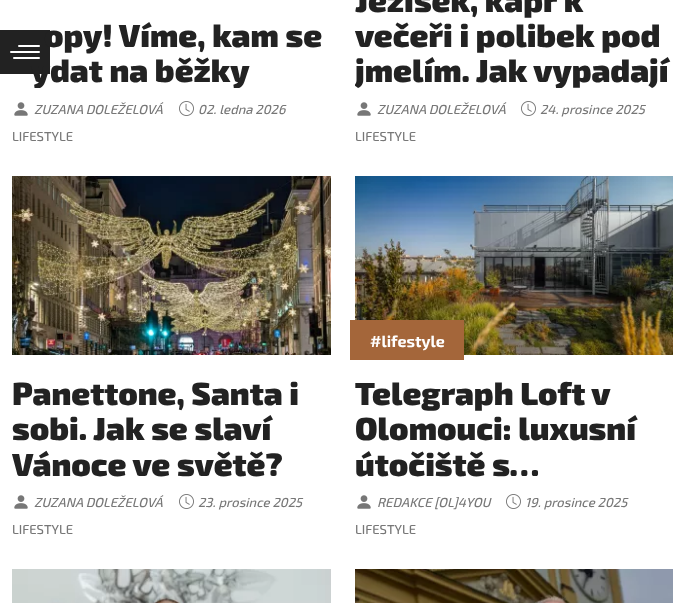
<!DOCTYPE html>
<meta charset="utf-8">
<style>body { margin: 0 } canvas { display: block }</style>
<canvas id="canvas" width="685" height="603"></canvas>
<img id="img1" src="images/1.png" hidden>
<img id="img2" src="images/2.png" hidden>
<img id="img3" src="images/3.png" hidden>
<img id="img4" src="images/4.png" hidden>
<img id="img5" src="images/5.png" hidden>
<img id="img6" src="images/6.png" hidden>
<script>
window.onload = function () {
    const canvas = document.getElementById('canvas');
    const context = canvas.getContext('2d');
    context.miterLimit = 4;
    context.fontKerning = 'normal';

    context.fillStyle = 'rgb(255, 255, 255)';
    context.fillRect(0, 0, 685, 603);
    context.drawImage(document.getElementById('img1'), 14, 102, 14, 14);
    context.drawImage(document.getElementById('img2'), 179, 101, 15, 15);
    context.drawImage(document.getElementById('img1'), 357, 102, 14, 14);
    context.drawImage(document.getElementById('img2'), 521, 101, 15, 15);
    context.drawImage(document.getElementById('img3'), 12, 176, 319, 179);
    context.drawImage(document.getElementById('img1'), 14, 495, 14, 14);
    context.drawImage(document.getElementById('img2'), 179, 494, 15, 15);
    context.drawImage(document.getElementById('img4'), 355, 176, 318, 179);
    context.fillStyle = 'rgb(164, 102, 58)';
    context.fillRect(350, 320, 114, 40);
    context.drawImage(document.getElementById('img1'), 357, 495, 14, 14);
    context.drawImage(document.getElementById('img2'), 506, 494, 15, 15);
    context.drawImage(document.getElementById('img5'), 12, 569, 319, 34);
    context.drawImage(document.getElementById('img6'), 355, 569, 318, 34);
    context.fillStyle = 'rgb(34, 34, 34)';
    context.fillRect(0, 30, 50, 44);
    context.fillStyle = 'rgb(255, 255, 255)';
    context.beginPath();
    context.roundRect(18, 45, 22, 2, 1);
    context.fill();
    context.beginPath();
    context.roundRect(10, 51, 30, 2, 1);
    context.fill();
    context.font = '900 32px "Exo 2"';
    context.fillStyle = 'rgb(34, 34, 34)';
    context.fillText('opy! Víme, kam se', 44, 47);
    context.save();
    context.beginPath();
    context.rect(12, 0, 319, 88);
    context.clip();
    context.fillText('ydat na běžky', 31, 82);
    context.restore();
    context.font = 'italic 500 13px "Exo 2"';
    context.fillStyle = 'rgb(119, 119, 119)';
    context.fillText('ZUZANA DOLEŽELOVÁ', 34, 114);
    context.fillText('02. ledna 2026', 198, 114);
    context.font = '500 13px "Exo 2"';
    context.fillText('LIFESTYLE', 12, 141);
    context.font = '900 32px "Exo 2"';
    context.fillStyle = 'rgb(34, 34, 34)';
    context.fillText('Ježíšek, kapr k', 355, 12);
    context.fillText('večeři i polibek pod', 355, 47);
    context.save();
    context.beginPath();
    context.rect(355, 0, 318, 88);
    context.clip();
    context.fillText('jmelím. Jak vypadají', 355, 82);
    context.restore();
    context.font = 'italic 500 13px "Exo 2"';
    context.fillStyle = 'rgb(119, 119, 119)';
    context.fillText('ZUZANA DOLEŽELOVÁ', 377, 114);
    context.fillText('24. prosince 2025', 540, 114);
    context.font = '500 13px "Exo 2"';
    context.fillText('LIFESTYLE', 355, 141);
    context.font = '900 32px "Exo 2"';
    context.fillStyle = 'rgb(34, 34, 34)';
    context.fillText('Panettone, Santa i', 12, 405);
    context.fillText('sobi. Jak se slaví', 12, 440);
    context.fillText('Vánoce ve světě?', 12, 476);
    context.font = 'italic 500 13px "Exo 2"';
    context.fillStyle = 'rgb(119, 119, 119)';
    context.fillText('ZUZANA DOLEŽELOVÁ', 34, 507);
    context.fillText('23. prosince 2025', 198, 507);
    context.font = '500 13px "Exo 2"';
    context.fillText('LIFESTYLE', 12, 534);
    context.font = 'bold 16px "Exo 2"';
    context.fillStyle = 'rgb(255, 255, 255)';
    context.fillText('#lifestyle', 370, 347);
    context.save();
    context.beginPath();
    context.rect(355, 375, 318, 106);
    context.clip();
    context.font = '900 32px "Exo 2"';
    context.fillStyle = 'rgb(34, 34, 34)';
    context.fillText('Telegraph Loft v', 355, 405);
    context.restore();
    context.font = '900 32px "Exo 2"';
    context.fillStyle = 'rgb(34, 34, 34)';
    context.fillText('Olomouci: luxusní', 355, 440);
    context.fillText('útočiště s…', 355, 476);
    context.font = 'italic 500 13px "Exo 2"';
    context.fillStyle = 'rgb(119, 119, 119)';
    context.fillText('REDAKCE [OL]4YOU', 377, 507);
    context.fillText('19. prosince 2025', 525, 507);
    context.font = '500 13px "Exo 2"';
    context.fillText('LIFESTYLE', 355, 534);
    context.fillStyle = 'rgb(255, 255, 255)';
    context.beginPath();
    context.roundRect(13, 57, 27, 2, 1);
    context.fill();
};
</script>
